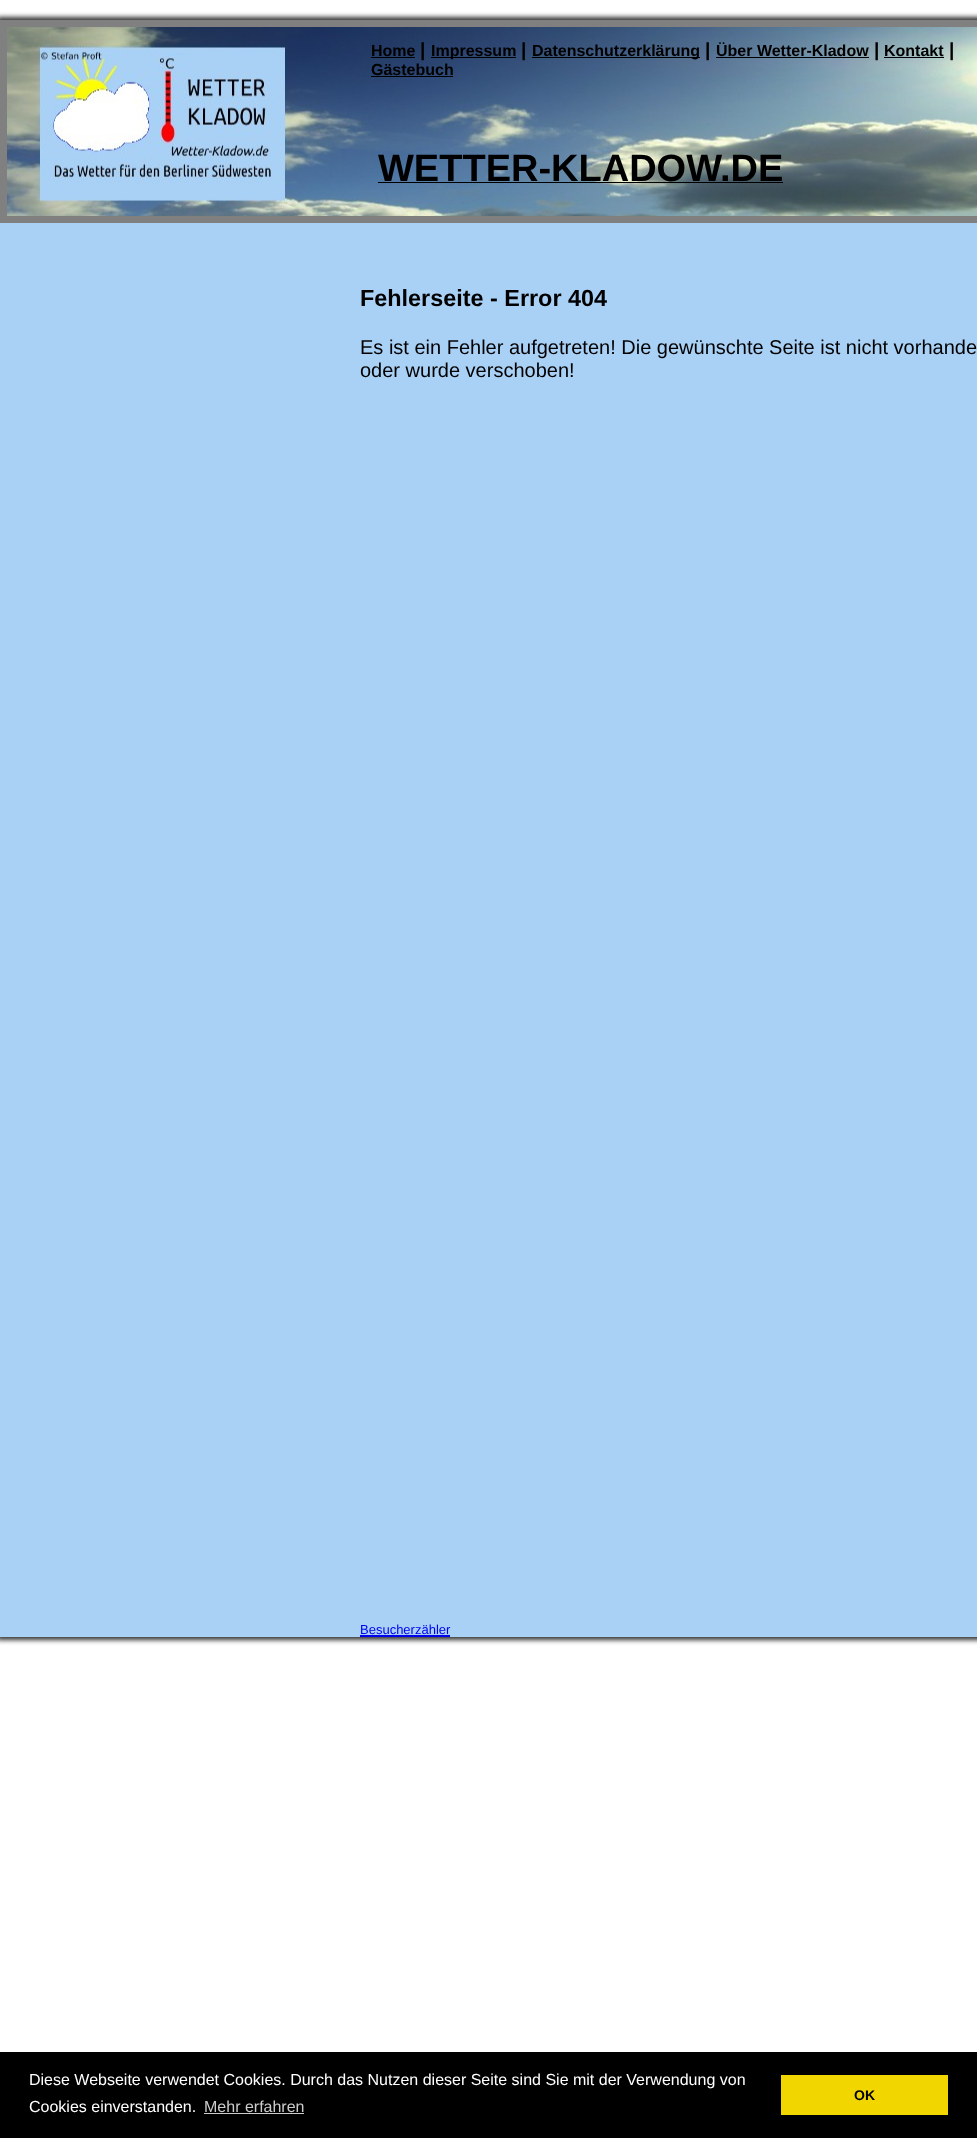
<!DOCTYPE html>
<meta charset="utf-8">
<style>body { margin: 0 } canvas { display: block }</style>
<canvas id="canvas" width="977" height="2138"></canvas>
<img id="img1" src="images/1.png" hidden>
<script>
window.onload = function () {
    const canvas = document.getElementById('canvas');
    const context = canvas.getContext('2d');
    context.miterLimit = 4;
    context.fontKerning = 'normal';

    context.fillStyle = 'rgb(255, 255, 255)';
    context.fillRect(0, 0, 977, 2138);
    context.fillStyle = 'rgb(51, 51, 51)';
    context.filter = 'blur(2.5px)';
    context.beginPath();
    context.rect(-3, 17, 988, 1623);
    context.fill();
    context.filter = 'none';
    context.fillStyle = 'rgb(169, 208, 245)';
    context.fillRect(0, 223, 977, 1414);
    context.drawImage(document.getElementById('img1'), 7, 27, 970, 189);
    context.strokeStyle = 'rgb(128, 128, 128)';
    context.lineWidth = 7;
    context.strokeRect(3.5, 23.5, 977, 196);
    context.fillStyle = 'rgb(0, 0, 0)';
    context.fillRect(371, 57, 44, 1);
    context.fillRect(431, 57, 85, 1);
    context.fillRect(532, 57, 168, 1);
    context.fillRect(716, 57, 153, 1);
    context.fillRect(884, 57, 60, 1);
    context.fillRect(371, 76, 82, 1);
    context.fillRect(378, 182, 405, 1);
    context.fillStyle = 'rgb(0, 0, 238)';
    context.fillRect(360, 1635, 90, 2);
    context.fillStyle = 'rgb(0, 0, 0)';
    context.fillRect(0, 2052, 977, 86);
    context.fillStyle = 'rgb(204, 204, 204)';
    context.fillRect(204, 2113, 100, 1);
    context.fillStyle = 'rgb(241, 214, 0)';
    context.fillRect(781, 2075, 167, 40);
    context.font = 'bold 16px Liberation Sans';
    context.fillStyle = 'rgb(0, 0, 0)';
    context.fillText('Home', 371, 56);
    context.font = 'bold 19px Liberation Sans';
    context.fillText('|', 420, 56);
    context.font = 'bold 16px Liberation Sans';
    context.fillText('Impressum', 431, 56);
    context.font = 'bold 19px Liberation Sans';
    context.fillText('|', 521, 56);
    context.font = 'bold 16px Liberation Sans';
    context.fillText('Datenschutzerklärung', 532, 56);
    context.font = 'bold 19px Liberation Sans';
    context.fillText('|', 705, 56);
    context.font = 'bold 16px Liberation Sans';
    context.fillText('Über Wetter-Kladow', 716, 56);
    context.font = 'bold 19px Liberation Sans';
    context.fillText('|', 874, 56);
    context.font = 'bold 16px Liberation Sans';
    context.fillText('Kontakt', 884, 56);
    context.font = 'bold 19px Liberation Sans';
    context.fillText('|', 949, 56);
    context.font = 'bold 16px Liberation Sans';
    context.fillText('Gästebuch', 371, 75);
    context.font = 'bold 38px Liberation Sans';
    context.fillText('WETTER-KLADOW.DE', 378, 181);
    context.font = 'bold 23.4px Liberation Sans';
    context.fillText('Fehlerseite - Error 404', 360, 306);
    context.font = '20px Liberation Sans';
    context.fillText('Es ist ein Fehler aufgetreten! Die gewünschte Seite ist nicht vorhande', 360, 354);
    context.fillText('oder wurde verschoben!', 360, 377);
    context.font = '13px Liberation Sans';
    context.fillStyle = 'rgb(0, 0, 238)';
    context.fillText('Besucherzähler', 360, 1634);
    context.font = '16px Liberation Sans';
    context.fillStyle = 'rgb(255, 255, 255)';
    context.fillText('Diese Webseite verwendet Cookies. Durch das Nutzen dieser Seite sind Sie mit der Verwendung von', 29, 2085);
    context.fillText('Cookies einverstanden.', 29, 2112);
    context.fillStyle = 'rgb(204, 204, 204)';
    context.fillText('Mehr erfahren', 204, 2112);
    context.font = 'bold 14px Liberation Sans';
    context.fillStyle = 'rgb(0, 0, 0)';
    context.fillText('OK', 854, 2100);
};
</script>
